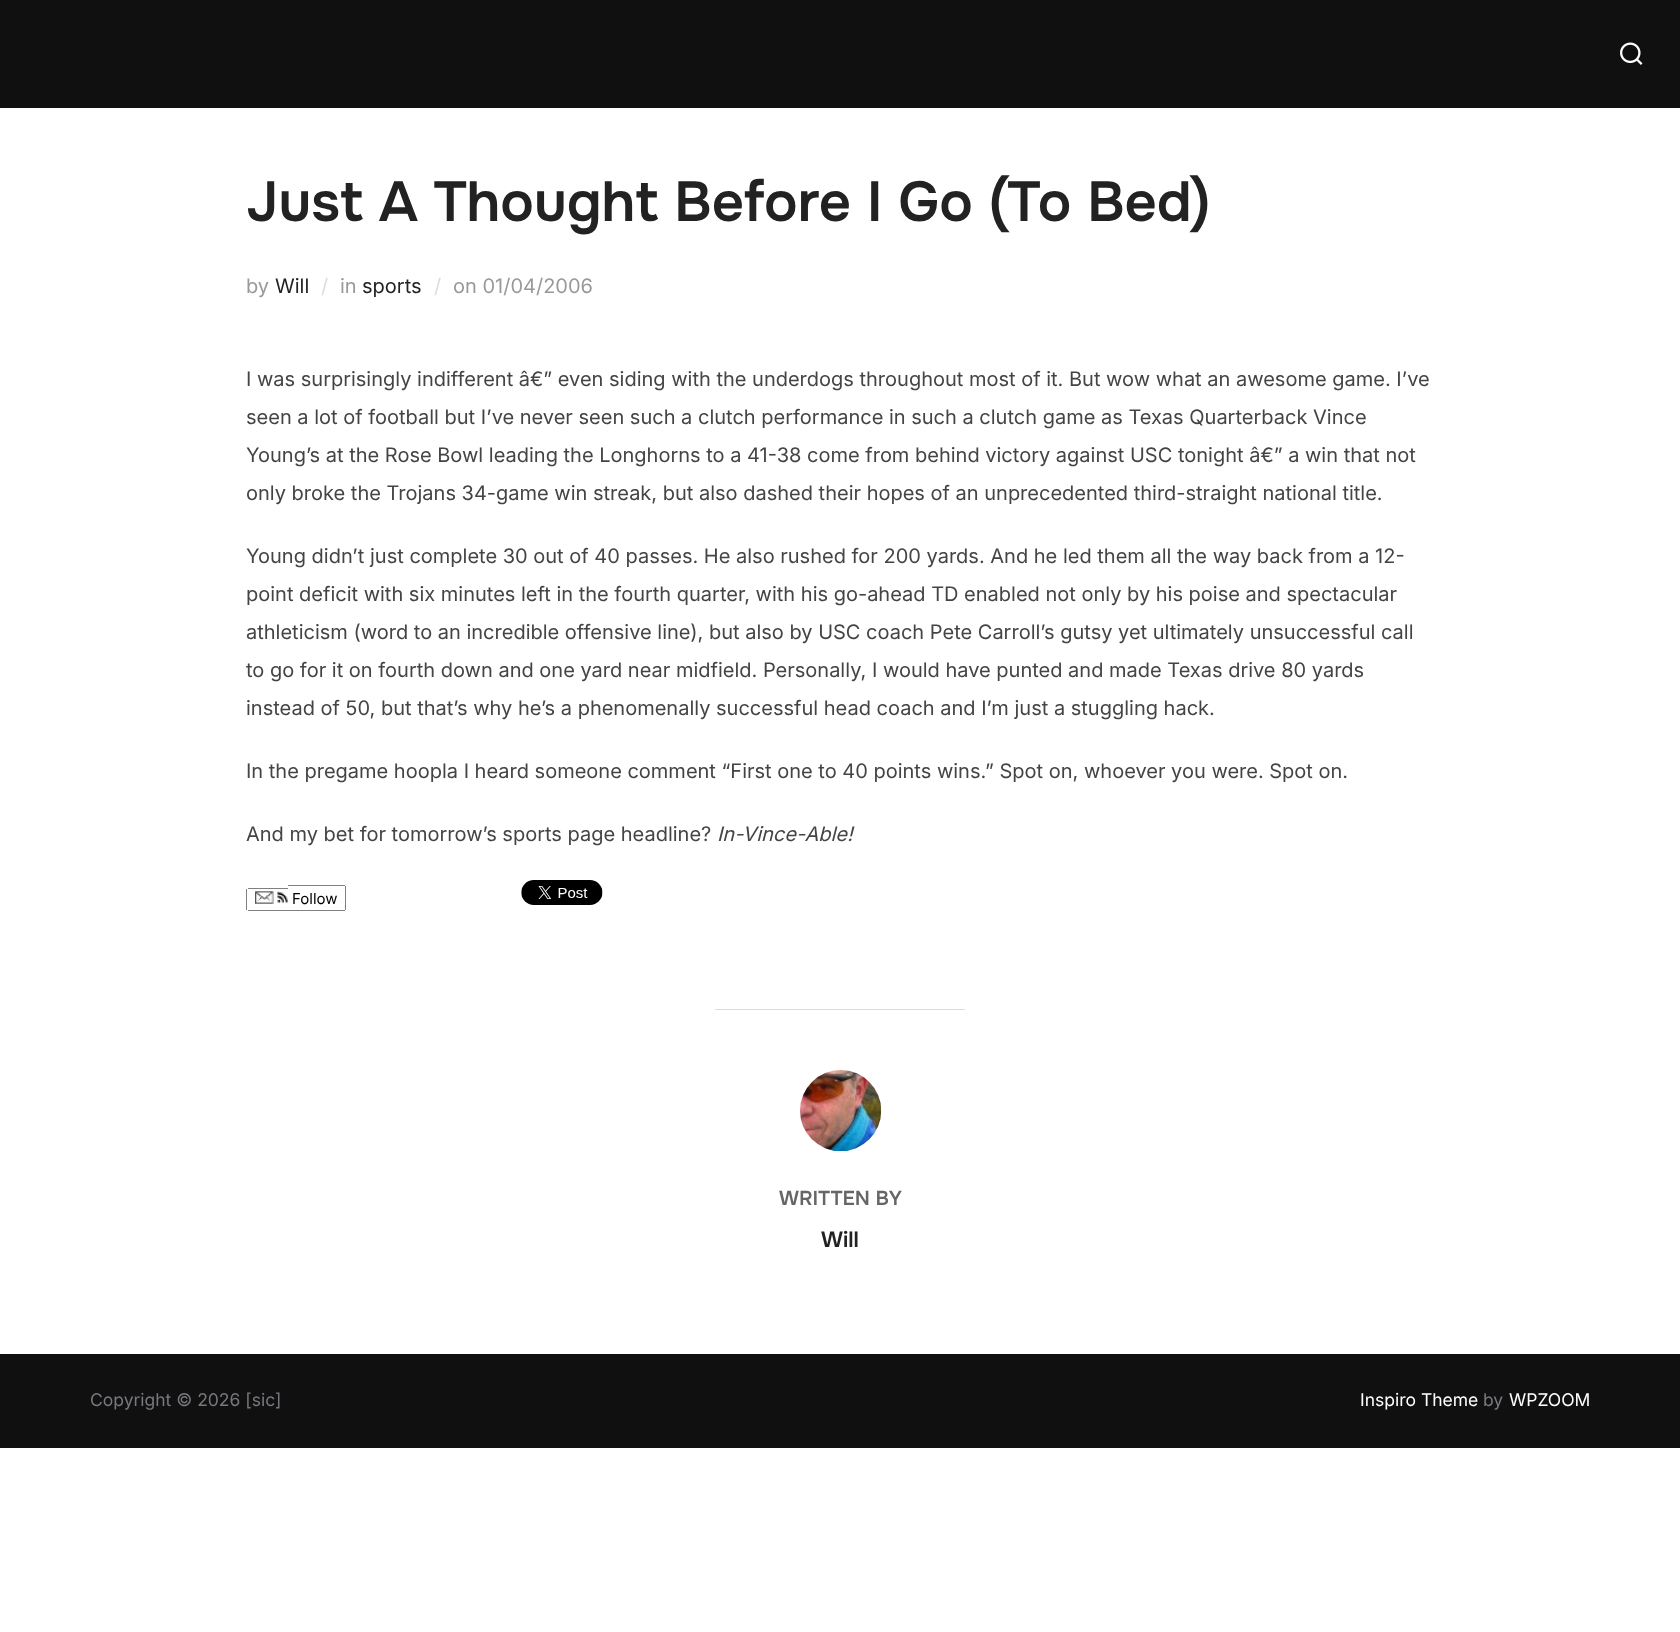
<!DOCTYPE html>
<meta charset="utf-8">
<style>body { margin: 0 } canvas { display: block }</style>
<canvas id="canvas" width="1680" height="1632"></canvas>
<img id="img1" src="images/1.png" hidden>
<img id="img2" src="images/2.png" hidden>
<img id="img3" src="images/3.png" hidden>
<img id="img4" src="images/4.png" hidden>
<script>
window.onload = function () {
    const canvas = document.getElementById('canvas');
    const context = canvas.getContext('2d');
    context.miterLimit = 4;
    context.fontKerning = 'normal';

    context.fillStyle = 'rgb(255, 255, 255)';
    context.fillRect(0, 0, 1680, 1632);
    context.fillStyle = 'rgb(16, 16, 16)';
    context.fillRect(0, 0, 1680, 108);
    context.drawImage(document.getElementById('img1'), 1620, 42, 23, 23);
    context.drawImage(document.getElementById('img2'), 255, 891, 33, 13);
    context.fillStyle = 'rgb(128, 128, 128)';
    context.fillRect(248, 888, 40, 1);
    context.fillRect(248, 910, 97, 1);
    context.fillRect(246, 889, 1, 21);
    context.fillRect(288, 885, 57, 1);
    context.fillRect(345, 886, 1, 24);
    context.drawImage(document.getElementById('img3'), 521, 880, 82, 25);
    context.fillStyle = 'rgb(219, 219, 219)';
    context.fillRect(715, 1009, 250, 1);
    context.drawImage(document.getElementById('img4'), 800, 1070, 82, 82);
    context.fillStyle = 'rgb(16, 16, 16)';
    context.fillRect(0, 1354, 1680, 94);
    context.font = '600 56.25px Onest';
    context.fillStyle = 'rgb(34, 34, 34)';
    context.fillText('Just A Thought Before I Go (To Bed)', 246, 221);
    context.font = '20px Inter';
    context.fillStyle = 'rgb(153, 153, 153)';
    context.fillText('by', 246, 293);
    context.fillStyle = 'rgb(34, 34, 34)';
    context.fillText('Will', 275, 293);
    context.fillStyle = 'rgb(219, 221, 221)';
    context.fillText('/', 321, 293);
    context.fillStyle = 'rgb(153, 153, 153)';
    context.fillText('in', 340, 293);
    context.fillStyle = 'rgb(34, 34, 34)';
    context.fillText('sports', 362, 293);
    context.fillStyle = 'rgb(219, 221, 221)';
    context.fillText('/', 434, 293);
    context.fillStyle = 'rgb(153, 153, 153)';
    context.fillText('on 01/04/2006', 453, 293);
    context.fillStyle = 'rgb(68, 68, 68)';
    context.fillText('I was surprisingly indifferent â€” even siding with the underdogs throughout most of it. But wow what an awesome game. I’ve', 246, 386);
    context.fillText('seen a lot of football but I’ve never seen such a clutch performance in such a clutch game as Texas Quarterback Vince', 246, 424);
    context.fillText('Young’s at the Rose Bowl leading the Longhorns to a 41-38 come from behind victory against USC tonight â€” a win that not', 246, 462);
    context.fillText('only broke the Trojans 34-game win streak, but also dashed their hopes of an unprecedented third-straight national title.', 246, 500);
    context.fillText('Young didn’t just complete 30 out of 40 passes. He also rushed for 200 yards. And he led them all the way back from a 12-', 246, 563);
    context.fillText('point deficit with six minutes left in the fourth quarter, with his go-ahead TD enabled not only by his poise and spectacular', 246, 601);
    context.fillText('athleticism (word to an incredible offensive line), but also by USC coach Pete Carroll’s gutsy yet ultimately unsuccessful call', 246, 639);
    context.fillText('to go for it on fourth down and one yard near midfield. Personally, I would have punted and made Texas drive 80 yards', 246, 677);
    context.fillText('instead of 50, but that’s why he’s a phenomenally successful head coach and I’m just a stuggling hack.', 246, 715);
    context.fillText('In the pregame hoopla I heard someone comment “First one to 40 points wins.” Spot on, whoever you were. Spot on.', 246, 778);
    context.fillText('And my bet for tomorrow’s sports page headline?', 246, 841);
    context.font = 'italic 20px Inter';
    context.fillText('In-Vince-Able!', 717, 841);
    context.font = '15px Inter';
    context.fillStyle = 'rgb(0, 0, 0)';
    context.fillText('Follow', 292, 904);
    context.font = '600 20px Onest';
    context.fillStyle = 'rgb(102, 102, 102)';
    context.fillText('WRITTEN BY', 779, 1205);
    context.font = '600 22px Onest';
    context.fillStyle = 'rgb(34, 34, 34)';
    context.fillText('Will', 821, 1247);
    context.font = '17.5px Inter';
    context.fillStyle = 'rgb(120, 120, 127)';
    context.fillText('Copyright © 2026 [sic]', 90, 1406);
    context.fillStyle = 'rgb(255, 255, 255)';
    context.fillText('Inspiro Theme', 1360, 1406);
    context.fillStyle = 'rgb(120, 120, 127)';
    context.fillText('by', 1483, 1406);
    context.fillStyle = 'rgb(255, 255, 255)';
    context.fillText('WPZOOM', 1509, 1406);
};
</script>
